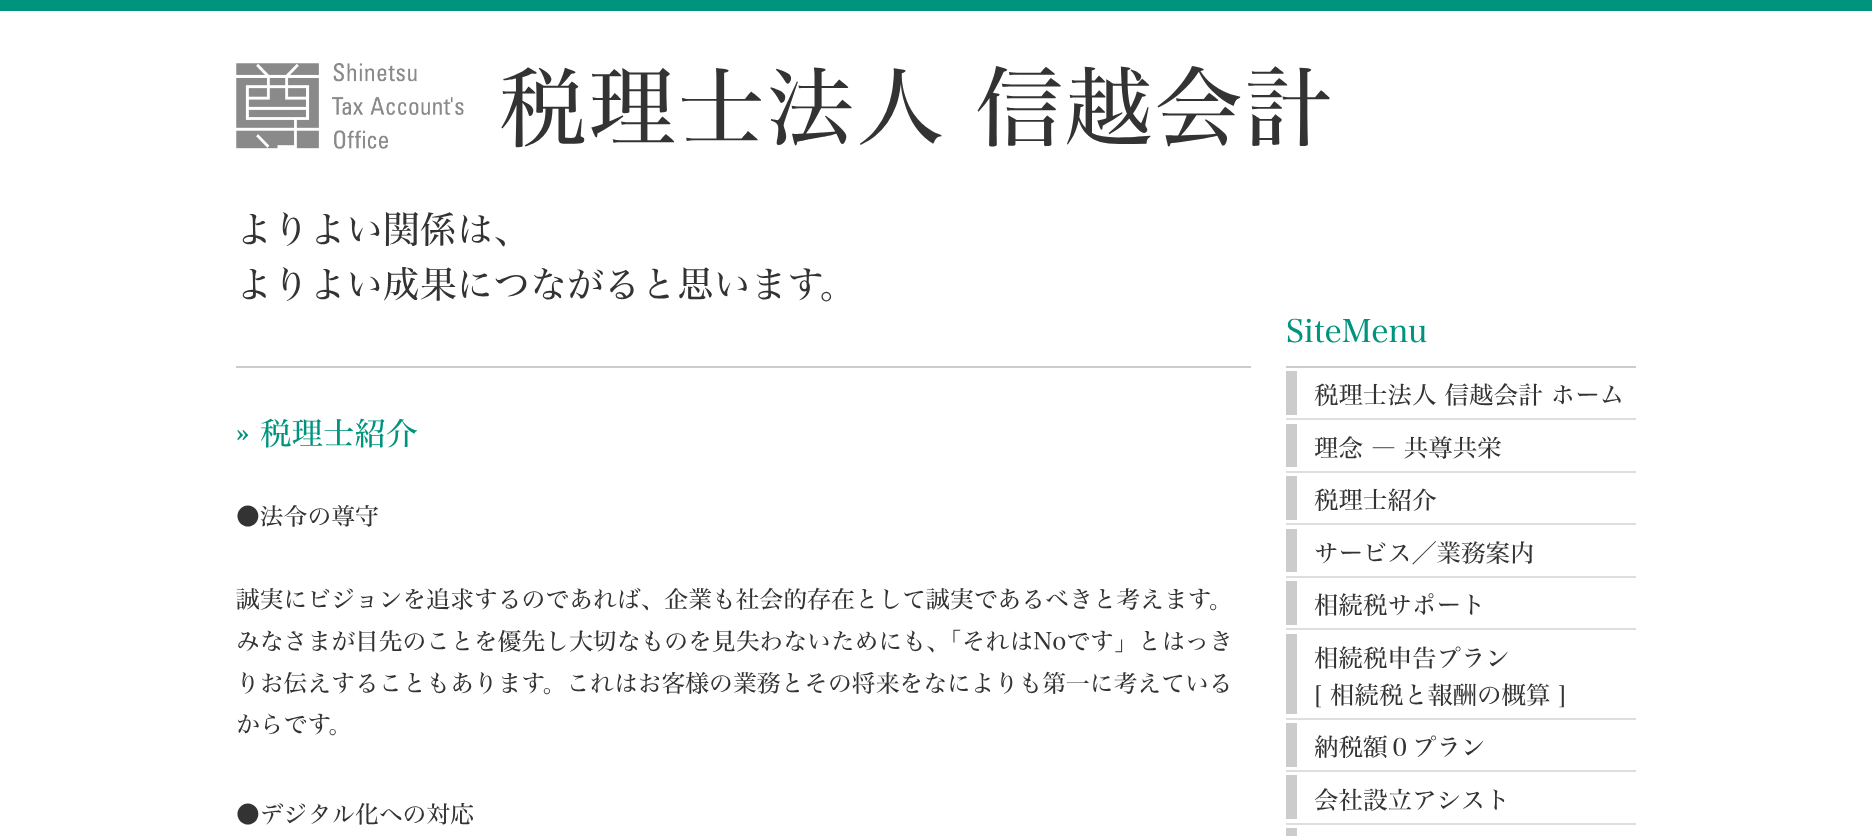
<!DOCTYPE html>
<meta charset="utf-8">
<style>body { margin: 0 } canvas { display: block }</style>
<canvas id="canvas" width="1872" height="836"></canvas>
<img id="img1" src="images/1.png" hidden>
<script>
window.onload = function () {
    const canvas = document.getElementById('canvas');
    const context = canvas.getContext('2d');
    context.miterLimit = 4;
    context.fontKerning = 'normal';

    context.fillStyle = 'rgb(255, 255, 255)';
    context.fillRect(0, 0, 1872, 836);
    context.fillStyle = 'rgb(0, 148, 126)';
    context.fillRect(0, 0, 1872, 11);
    context.drawImage(document.getElementById('img1'), 236, 63, 228, 86);
    context.fillStyle = 'rgb(204, 204, 204)';
    context.fillRect(236, 366, 1015, 2);
    context.fillRect(1286, 366, 350, 2);
    context.fillStyle = 'rgb(222, 222, 222)';
    context.fillRect(1286, 418, 350, 2);
    context.fillStyle = 'rgb(204, 204, 204)';
    context.fillRect(1286, 371, 11, 44);
    context.fillStyle = 'rgb(222, 222, 222)';
    context.fillRect(1286, 471, 350, 2);
    context.fillStyle = 'rgb(204, 204, 204)';
    context.fillRect(1286, 424, 11, 43);
    context.fillStyle = 'rgb(222, 222, 222)';
    context.fillRect(1286, 523, 350, 2);
    context.fillStyle = 'rgb(204, 204, 204)';
    context.fillRect(1286, 476, 11, 44);
    context.fillStyle = 'rgb(222, 222, 222)';
    context.fillRect(1286, 576, 350, 2);
    context.fillStyle = 'rgb(204, 204, 204)';
    context.fillRect(1286, 529, 11, 43);
    context.fillStyle = 'rgb(222, 222, 222)';
    context.fillRect(1286, 628, 350, 2);
    context.fillStyle = 'rgb(204, 204, 204)';
    context.fillRect(1286, 581, 11, 44);
    context.fillStyle = 'rgb(222, 222, 222)';
    context.fillRect(1286, 718, 350, 2);
    context.fillStyle = 'rgb(204, 204, 204)';
    context.fillRect(1286, 634, 11, 80);
    context.fillStyle = 'rgb(222, 222, 222)';
    context.fillRect(1286, 770, 350, 2);
    context.fillStyle = 'rgb(204, 204, 204)';
    context.fillRect(1286, 723, 11, 44);
    context.fillStyle = 'rgb(222, 222, 222)';
    context.fillRect(1286, 823, 350, 2);
    context.fillStyle = 'rgb(204, 204, 204)';
    context.fillRect(1286, 775, 11, 44);
    context.fillRect(1286, 828, 11, 8);
    context.letterSpacing = '1.75px';
    context.font = '87.5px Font';
    context.fillStyle = 'rgb(51, 51, 51)';
    context.fillText('税理士法人 信越会計', 499, 140);
    context.letterSpacing = '0px';
    context.font = '36.75px Font';
    context.fillText('よりよい関係は、', 236, 243);
    context.fillText('よりよい成果につながると思います。', 236, 298);
    context.font = '31.5px Font';
    context.fillStyle = 'rgb(0, 148, 126)';
    context.fillText('» 税理士紹介', 236, 445);
    context.font = '23.8px Font';
    context.fillStyle = 'rgb(51, 51, 51)';
    context.fillText('●法令の尊守', 236, 525);
    context.fillText('誠実にビジョンを追求するのであれば、企業も社会的存在として誠実であるべきと考えます。', 236, 608);
    context.fillText('みなさまが目先のことを優先し大切なものを見失わないためにも、「それはNoです」とはっき', 236, 650);
    context.fillText('りお伝えすることもあります。これはお客様の業務とその将来をなによりも第一に考えている', 236, 692);
    context.fillText('からです。', 236, 733);
    context.fillText('●デジタル化への対応', 236, 823);
    context.font = '31.5px Font';
    context.fillStyle = 'rgb(0, 148, 126)';
    context.fillText('SiteMenu', 1286, 343);
    context.font = '24.5px Font';
    context.fillStyle = 'rgb(51, 51, 51)';
    context.fillText('税理士法人 信越会計 ホーム', 1314, 404);
    context.fillText('理念 ― 共尊共栄', 1314, 457);
    context.fillText('税理士紹介', 1314, 509);
    context.fillText('サービス／業務案内', 1314, 562);
    context.fillText('相続税サポート', 1314, 614);
    context.fillText('相続税申告プラン', 1314, 667);
    context.fillText('[ 相続税と報酬の概算 ]', 1314, 704);
    context.fillText('納税額０プラン', 1314, 756);
    context.fillText('会社設立アシスト', 1314, 809);
};
</script>
